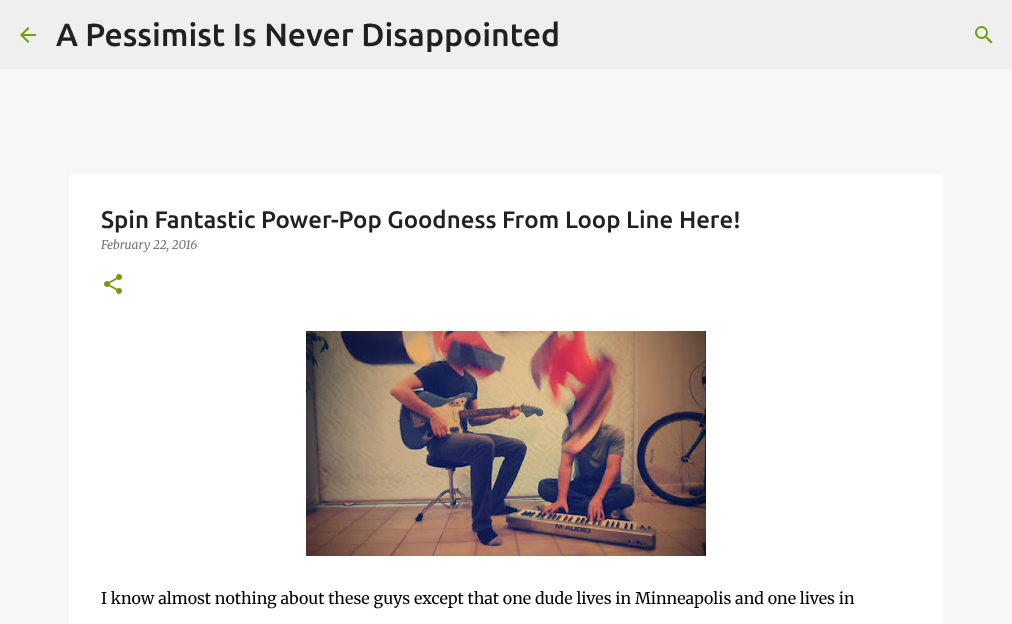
<!DOCTYPE html>
<meta charset="utf-8">
<style>body { margin: 0 } canvas { display: block }</style>
<canvas id="canvas" width="1012" height="624"></canvas>
<img id="img1" src="images/1.png" hidden>
<img id="img2" src="images/2.png" hidden>
<img id="img3" src="images/3.png" hidden>
<img id="img4" src="images/4.png" hidden>
<script>
window.onload = function () {
    const canvas = document.getElementById('canvas');
    const context = canvas.getContext('2d');
    context.miterLimit = 4;
    context.fontKerning = 'normal';

    context.fillStyle = 'rgb(247, 247, 247)';
    context.fillRect(0, 0, 1012, 624);
    context.fillStyle = 'rgb(239, 239, 239)';
    context.fillRect(0, 0, 1012, 69);
    context.drawImage(document.getElementById('img1'), 20, 27, 16, 16);
    context.drawImage(document.getElementById('img2'), 975, 26, 18, 18);
    context.fillStyle = 'rgb(255, 255, 255)';
    context.fillRect(69, 174, 874, 450);
    context.drawImage(document.getElementById('img3'), 104, 274, 18, 20);
    context.drawImage(document.getElementById('img4'), 306, 331, 400, 225);
    context.font = '500 32px Ubuntu';
    context.fillStyle = 'rgb(33, 33, 33)';
    context.fillText('A Pessimist Is Never Disappointed', 56, 46);
    context.font = '500 24px Ubuntu';
    context.fillText('Spin Fantastic Power-Pop Goodness From Loop Line Here!', 101, 228);
    context.font = 'italic 12px Merriweather';
    context.fillStyle = 'rgb(117, 117, 117)';
    context.fillText('February 22, 2016', 101, 249);
    context.font = '300 16px Merriweather';
    context.fillStyle = 'rgb(0, 0, 0)';
    context.fillText('I know almost nothing about these guys except that one dude lives in Minneapolis and one lives in', 101, 604);
};
</script>
